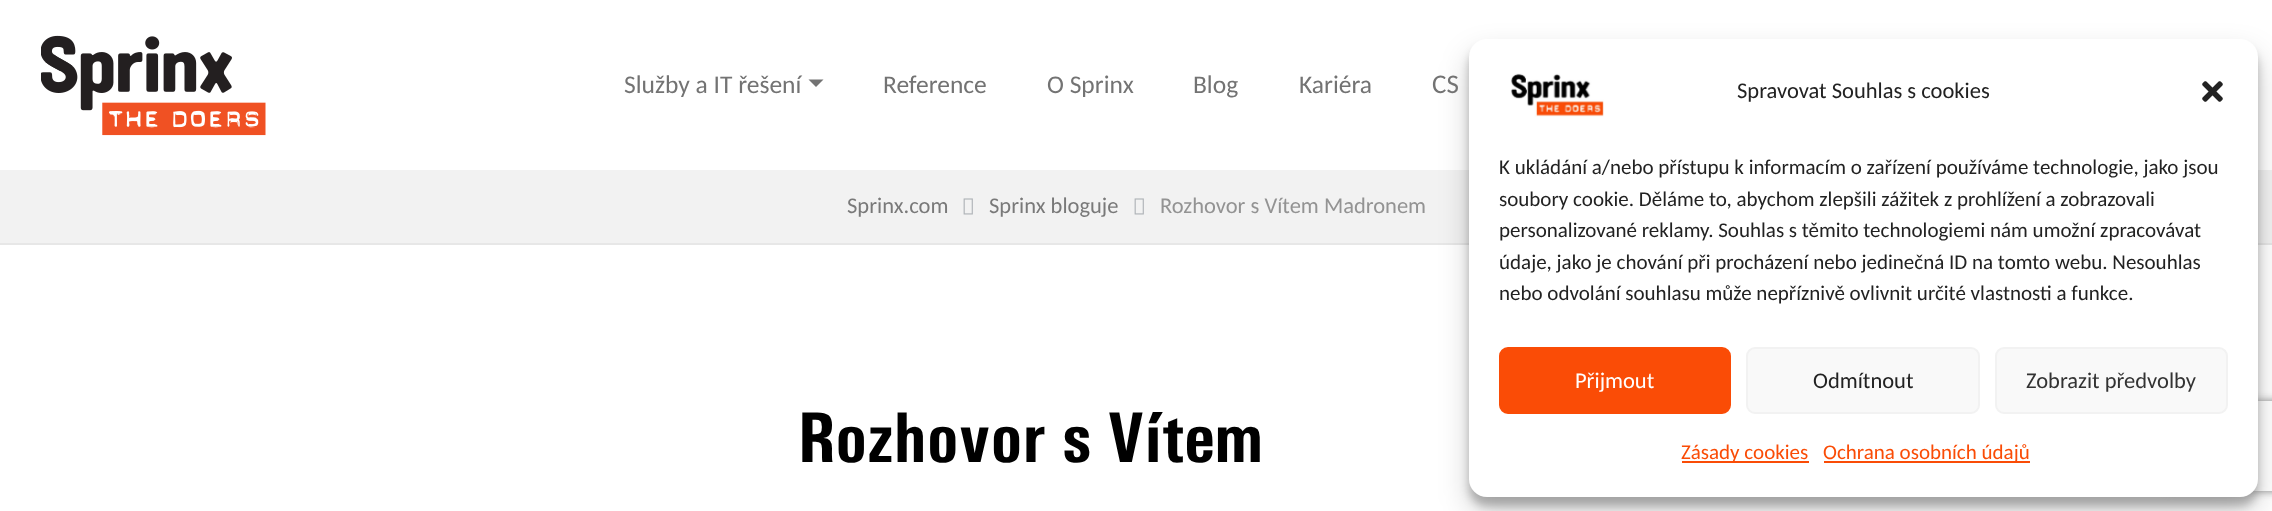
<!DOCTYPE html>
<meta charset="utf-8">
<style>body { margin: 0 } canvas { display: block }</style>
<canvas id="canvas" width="2272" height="511"></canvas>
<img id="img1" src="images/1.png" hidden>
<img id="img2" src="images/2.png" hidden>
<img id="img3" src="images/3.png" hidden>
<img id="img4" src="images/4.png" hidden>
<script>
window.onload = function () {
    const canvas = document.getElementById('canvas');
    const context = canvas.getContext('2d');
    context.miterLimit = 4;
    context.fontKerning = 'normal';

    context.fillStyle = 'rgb(255, 255, 255)';
    context.fillRect(0, 0, 2272, 511);
    context.drawImage(document.getElementById('img1'), 41, 35, 225, 101);
    context.fillStyle = 'rgb(115, 115, 115)';
    context.beginPath();
    context.moveTo(808.5, 79.5);
    context.lineTo(823.5, 79.5);
    context.lineTo(816, 87);
    context.closePath();
    context.fill();
    context.fillStyle = 'rgb(242, 242, 242)';
    context.fillRect(0, 170, 2272, 73);
    context.fillStyle = 'rgb(231, 231, 231)';
    context.fillRect(0, 243, 2272, 2);
    context.fillStyle = 'rgba(0, 0, 0, 0.23)';
    context.filter = 'blur(4.5px)';
    context.beginPath();
    context.roundRect(1469, 48, 789, 458, 18);
    context.fill();
    context.filter = 'none';
    context.fillStyle = 'rgba(0, 0, 0, 0.19)';
    context.filter = 'blur(15px)';
    context.beginPath();
    context.roundRect(1469, 54, 789, 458, 18);
    context.fill();
    context.filter = 'none';
    context.save();
    context.beginPath();
    context.moveTo(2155, 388);
    context.lineTo(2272, 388);
    context.lineTo(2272, 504);
    context.lineTo(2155, 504);
    context.closePath();
    context.moveTo(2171, 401);
    context.lineTo(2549, 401);
    context.bezierCurveTo(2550.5, 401, 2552, 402.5, 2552, 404);
    context.lineTo(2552, 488);
    context.bezierCurveTo(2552, 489.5, 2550.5, 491, 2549, 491);
    context.lineTo(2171, 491);
    context.bezierCurveTo(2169.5, 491, 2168, 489.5, 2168, 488);
    context.lineTo(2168, 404);
    context.bezierCurveTo(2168, 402.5, 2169.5, 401, 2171, 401);
    context.closePath();
    context.clip('evenodd');
    context.fillStyle = 'rgb(128, 128, 128)';
    context.filter = 'blur(4px)';
    context.beginPath();
    context.roundRect(2168, 401, 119, 90, 3);
    context.fill();
    context.filter = 'none';
    context.restore();
    context.fillStyle = 'rgb(255, 255, 255)';
    context.beginPath();
    context.roundRect(1469, 39, 789, 458, 18);
    context.fill();
    context.drawImage(document.getElementById('img2'), 1510, 73, 94, 44);
    context.drawImage(document.getElementById('img3'), 2202, 81, 21, 21);
    context.fillStyle = 'rgb(250, 76, 6)';
    context.beginPath();
    context.roundRect(1500, 348, 230, 65, 8);
    context.fill();
    context.strokeStyle = 'rgb(250, 76, 6)';
    context.lineWidth = 2;
    context.stroke();
    context.fillStyle = 'rgb(249, 249, 249)';
    context.beginPath();
    context.roundRect(1747, 348, 232, 65, 8);
    context.fill();
    context.strokeStyle = 'rgb(242, 242, 242)';
    context.stroke();
    context.beginPath();
    context.roundRect(1996, 348, 231, 65, 8);
    context.fill();
    context.stroke();
    context.fillStyle = 'rgb(250, 76, 6)';
    context.fillRect(1682, 461, 127, 2);
    context.fillRect(1824, 461, 206, 2);
    context.drawImage(document.getElementById('img4'), 963, 198, 10, 17);
    context.drawImage(document.getElementById('img4'), 1134, 198, 10, 17);
    context.font = '25.5px Carlito';
    context.fillStyle = 'rgb(115, 115, 115)';
    context.fillText('Služby a IT řešení', 624, 93);
    context.fillText('Reference', 883, 93);
    context.fillText('O Sprinx', 1047, 93);
    context.fillText('Blog', 1193, 93);
    context.fillText('Kariéra', 1299, 93);
    context.font = '27px Carlito';
    context.fillText('CS', 1432, 93);
    context.font = '22.5px Carlito';
    context.fillStyle = 'rgb(34, 34, 34)';
    context.fillText('Spravovat Souhlas s cookies', 1737, 98);
    context.font = '21px Carlito';
    context.fillText('K ukládání a/nebo přístupu k informacím o zařízení používáme technologie, jako jsou', 1499, 174);
    context.fillText('soubory cookie. Děláme to, abychom zlepšili zážitek z prohlížení a zobrazovali', 1499, 206);
    context.fillText('personalizované reklamy. Souhlas s těmito technologiemi nám umožní zpracovávat', 1499, 237);
    context.fillText('údaje, jako je chování při procházení nebo jedinečná ID na tomto webu. Nesouhlas', 1499, 269);
    context.fillText('nebo odvolání souhlasu může nepříznivě ovlivnit určité vlastnosti a funkce.', 1499, 300);
    context.font = '22.5px Carlito';
    context.fillStyle = 'rgb(255, 255, 255)';
    context.fillText('Přijmout', 1575, 388);
    context.fillStyle = 'rgb(34, 34, 34)';
    context.fillText('Odmítnout', 1813, 388);
    context.fillStyle = 'rgb(51, 51, 51)';
    context.fillText('Zobrazit předvolby', 2026, 388);
    context.font = '21px Carlito';
    context.fillStyle = 'rgb(250, 76, 6)';
    context.fillText('Zásady cookies', 1681, 459);
    context.fillText('Ochrana osobních údajů', 1823, 459);
    context.font = '22.5px Carlito';
    context.fillStyle = 'rgb(121, 121, 121)';
    context.fillText('Sprinx.com', 847, 213);
    context.fillText('Sprinx bloguje', 989, 213);
    context.fillStyle = 'rgb(147, 147, 147)';
    context.fillText('Rozhovor s Vítem Madronem', 1160, 213);
    context.font = 'bold 72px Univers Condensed';
    context.fillStyle = 'rgb(0, 0, 0)';
    context.fillText('Rozhovor s Vítem', 798, 462);
};
</script>
